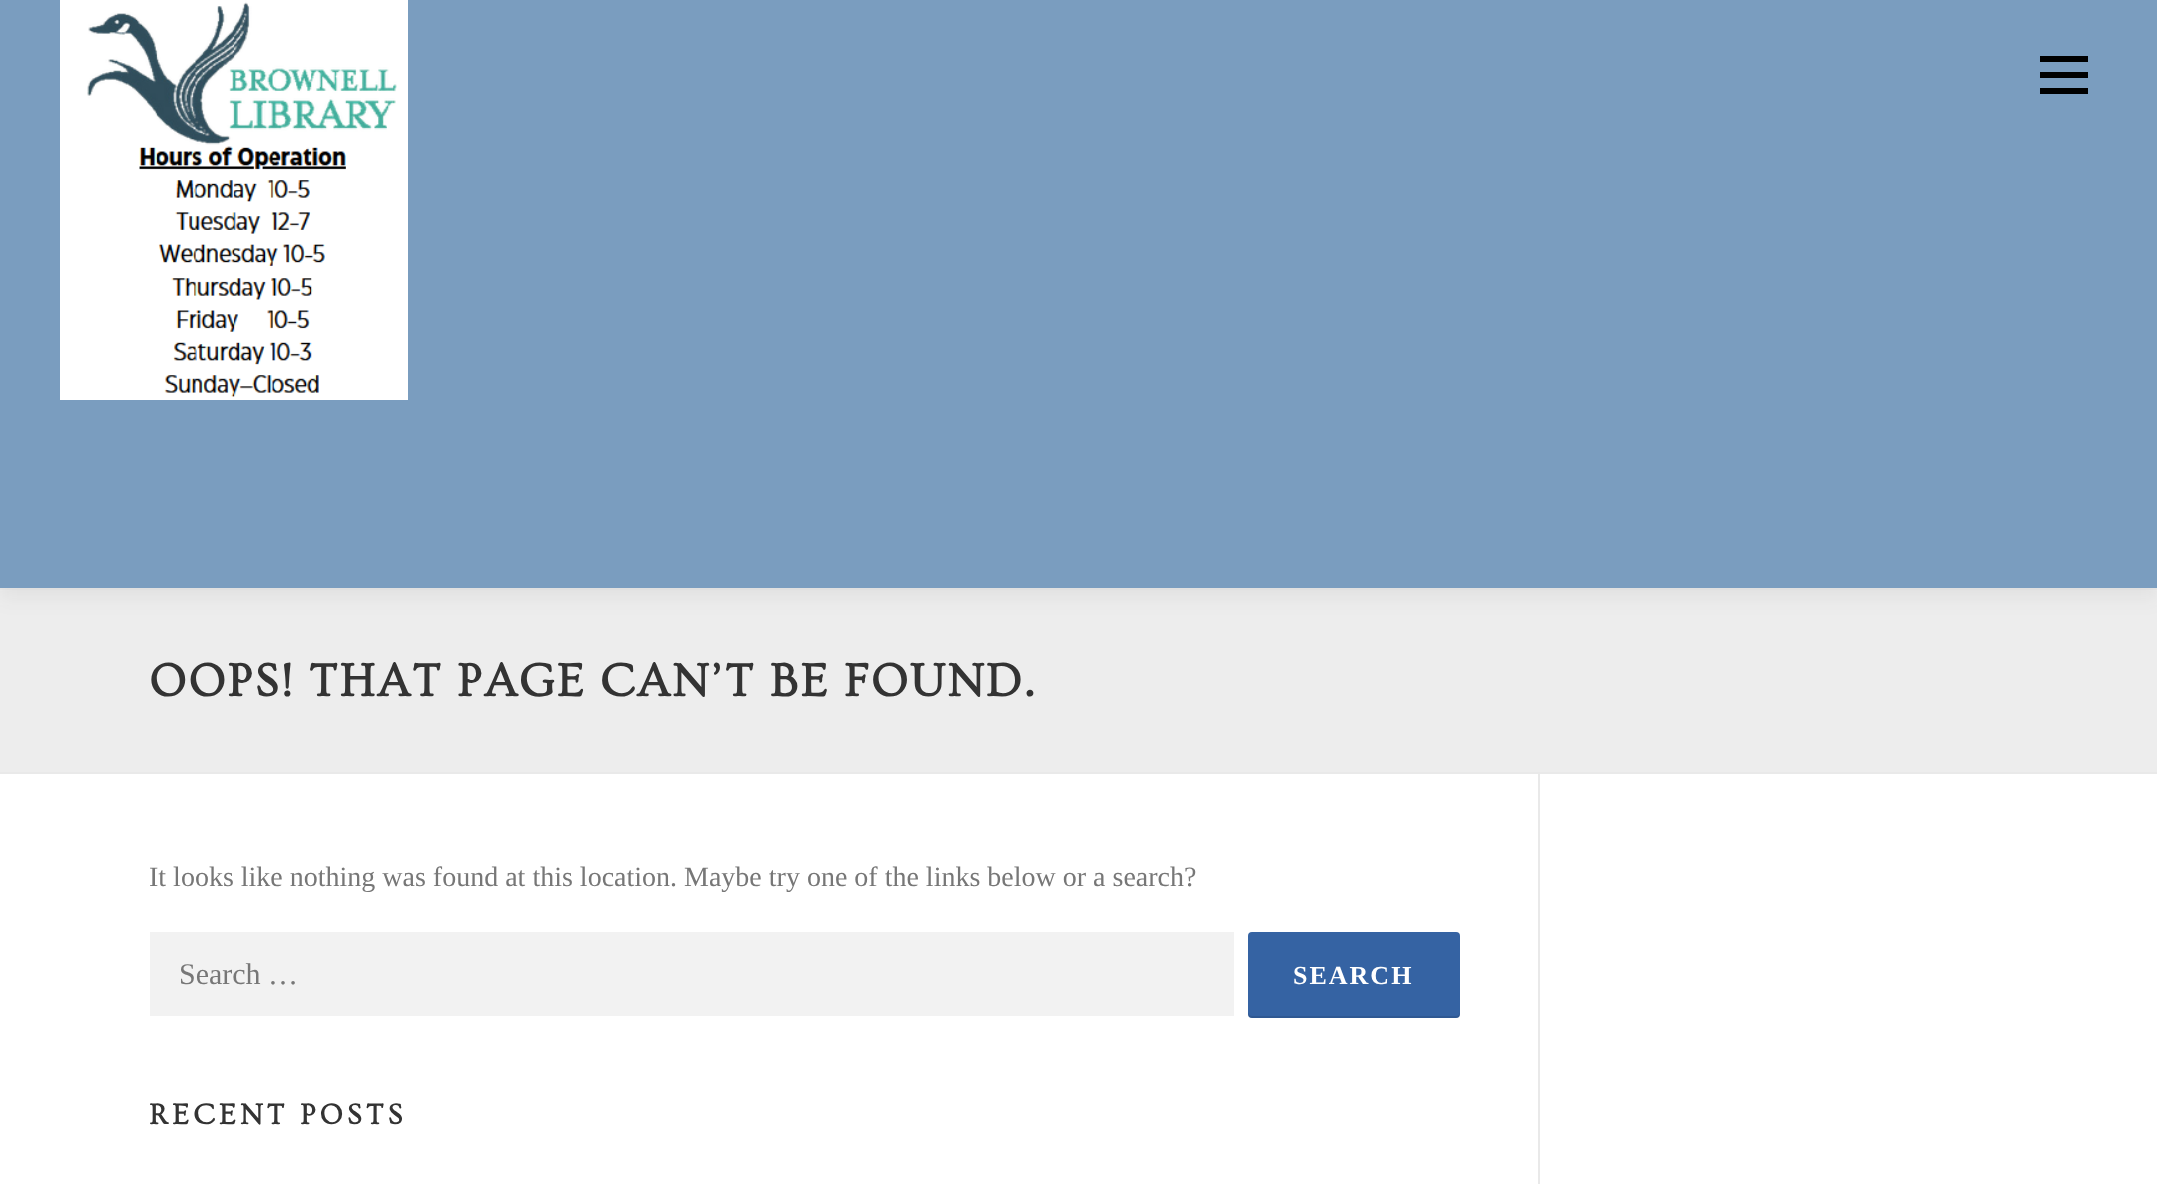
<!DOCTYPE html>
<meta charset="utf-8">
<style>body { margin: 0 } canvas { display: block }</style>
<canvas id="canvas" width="2157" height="1184"></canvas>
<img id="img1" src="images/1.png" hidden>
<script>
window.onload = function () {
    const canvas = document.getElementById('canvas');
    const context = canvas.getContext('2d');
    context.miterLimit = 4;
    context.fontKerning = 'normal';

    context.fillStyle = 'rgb(255, 255, 255)';
    context.fillRect(0, 0, 2157, 1184);
    context.fillStyle = 'rgb(233, 233, 233)';
    context.fillRect(0, 588, 2157, 2);
    context.fillStyle = 'rgb(237, 237, 237)';
    context.fillRect(0, 590, 2157, 182);
    context.fillStyle = 'rgba(50, 50, 50, 0.06)';
    context.filter = 'blur(10px)';
    context.beginPath();
    context.rect(0, 10, 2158, 588);
    context.fill();
    context.filter = 'none';
    context.fillStyle = 'rgb(122, 157, 191)';
    context.fillRect(0, 0, 2157, 588);
    context.drawImage(document.getElementById('img1'), 60, 0, 348, 400);
    context.fillStyle = 'rgb(0, 0, 0)';
    context.fillRect(2040, 72, 48, 6);
    context.fillRect(2040, 56, 48, 6);
    context.fillRect(2040, 88, 48, 6);
    context.fillStyle = 'rgb(233, 233, 233)';
    context.fillRect(0, 772, 2157, 2);
    context.fillRect(1538, 774, 2, 410);
    context.fillStyle = 'rgb(242, 242, 242)';
    context.fillRect(150, 932, 1084, 84);
    context.fillStyle = 'rgb(53, 99, 163)';
    context.beginPath();
    context.roundRect(1248, 932, 212, 86, 4);
    context.fill();
    context.fillStyle = 'rgba(0, 0, 0, 0.1)';
    context.beginPath();
    context.moveTo(1248, 1012);
    context.bezierCurveTo(1248, 1015, 1248, 1017, 1251, 1018);
    context.lineTo(1457, 1018);
    context.bezierCurveTo(1460, 1017, 1460, 1015, 1460, 1012);
    context.bezierCurveTo(1460, 1014, 1458, 1016, 1456, 1016);
    context.lineTo(1252, 1016);
    context.bezierCurveTo(1250, 1016, 1248, 1014, 1248, 1012);
    context.closePath();
    context.fill();
    context.letterSpacing = '2px';
    context.font = 'bold 48px Ovo';
    context.fillStyle = 'rgb(51, 51, 51)';
    context.fillText('OOPS! THAT PAGE CAN’T BE FOUND.', 149, 696);
    context.letterSpacing = '0px';
    context.font = '28px Liberation Serif';
    context.fillStyle = 'rgb(119, 119, 119)';
    context.fillText('It looks like nothing was found at this location. Maybe try one of the links below or a search?', 149, 886);
    context.font = '30px Liberation Serif';
    context.fillText('Search …', 179, 984);
    context.letterSpacing = '2px';
    context.font = 'bold 26px Liberation Serif';
    context.fillStyle = 'rgb(255, 255, 255)';
    context.fillText('SEARCH', 1293, 984);
    context.letterSpacing = '4px';
    context.font = 'bold 30px Ovo';
    context.fillStyle = 'rgb(51, 51, 51)';
    context.fillText('RECENT POSTS', 149, 1124);
};
</script>
